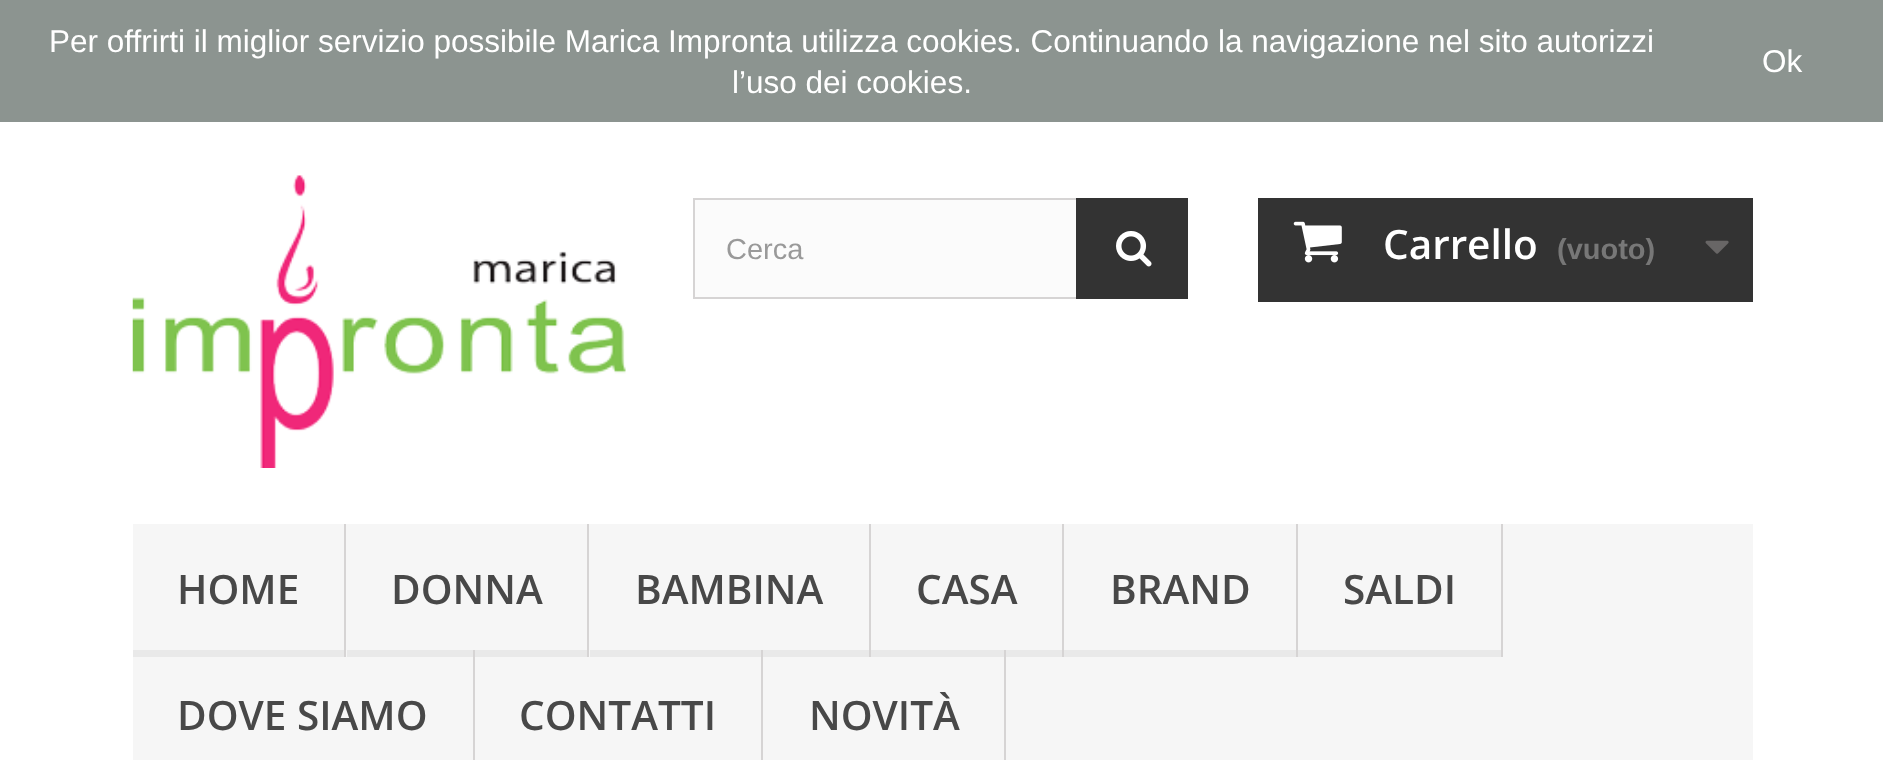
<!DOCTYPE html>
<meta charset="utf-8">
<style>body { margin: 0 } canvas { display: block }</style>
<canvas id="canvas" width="1883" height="760"></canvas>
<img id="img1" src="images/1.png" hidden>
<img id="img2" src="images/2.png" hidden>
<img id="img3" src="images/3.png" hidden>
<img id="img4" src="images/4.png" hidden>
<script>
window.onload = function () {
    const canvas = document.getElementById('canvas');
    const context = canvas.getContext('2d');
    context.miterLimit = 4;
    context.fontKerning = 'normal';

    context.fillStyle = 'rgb(255, 255, 255)';
    context.fillRect(0, 0, 1883, 760);
    context.fillStyle = 'rgb(140, 148, 144)';
    context.fillRect(0, 0, 1883, 122);
    context.drawImage(document.getElementById('img1'), 132, 175, 494, 293);
    context.fillStyle = 'rgb(251, 251, 251)';
    context.fillRect(695, 200, 381, 97);
    context.strokeStyle = 'rgb(214, 212, 212)';
    context.lineWidth = 2;
    context.strokeRect(694, 199, 493, 99);
    context.fillStyle = 'rgb(51, 51, 51)';
    context.fillRect(1076, 198, 112, 101);
    context.drawImage(document.getElementById('img2'), 1116, 231, 36, 36);
    context.fillRect(1258, 198, 495, 104);
    context.drawImage(document.getElementById('img3'), 1293, 221, 49, 42);
    context.drawImage(document.getElementById('img4'), 1705, 240, 24, 14);
    context.fillStyle = 'rgb(246, 246, 246)';
    context.fillRect(133, 524, 1620, 236);
    context.fillStyle = 'rgb(214, 212, 212)';
    context.fillRect(344, 524, 2, 133);
    context.fillStyle = 'rgb(233, 233, 233)';
    context.fillRect(133, 650, 211, 7);
    context.fillStyle = 'rgb(214, 212, 212)';
    context.fillRect(587, 524, 2, 133);
    context.fillStyle = 'rgb(233, 233, 233)';
    context.fillRect(347, 650, 240, 7);
    context.fillStyle = 'rgb(214, 212, 212)';
    context.fillRect(869, 524, 2, 133);
    context.fillStyle = 'rgb(233, 233, 233)';
    context.fillRect(590, 650, 279, 7);
    context.fillStyle = 'rgb(214, 212, 212)';
    context.fillRect(1062, 524, 2, 133);
    context.fillStyle = 'rgb(233, 233, 233)';
    context.fillRect(871, 650, 191, 7);
    context.fillStyle = 'rgb(214, 212, 212)';
    context.fillRect(1296, 524, 2, 133);
    context.fillStyle = 'rgb(233, 233, 233)';
    context.fillRect(1064, 650, 232, 7);
    context.fillStyle = 'rgb(214, 212, 212)';
    context.fillRect(1501, 524, 2, 133);
    context.fillStyle = 'rgb(233, 233, 233)';
    context.fillRect(1298, 650, 203, 7);
    context.fillStyle = 'rgb(214, 212, 212)';
    context.fillRect(473, 650, 2, 110);
    context.fillRect(761, 650, 2, 110);
    context.fillRect(1004, 650, 2, 110);
    context.font = '31.5px Liberation Sans';
    context.fillStyle = 'rgb(255, 255, 255)';
    context.fillText('Per offrirti il miglior servizio possibile Marica Impronta utilizza cookies. Continuando la navigazione nel sito autorizzi', 49, 52);
    context.fillText('l’uso dei cookies.', 732, 93);
    context.fillText('Ok', 1762, 72);
    context.font = '29px Liberation Sans';
    context.fillStyle = 'rgb(153, 153, 153)';
    context.fillText('Cerca', 726, 259);
    context.font = '600 40.5px Open Sans';
    context.fillStyle = 'rgb(255, 255, 255)';
    context.fillText('Carrello', 1383, 259);
    context.font = 'bold 29px Liberation Sans';
    context.fillStyle = 'rgb(119, 119, 119)';
    context.fillText('(vuoto)', 1557, 259);
    context.font = '600 40.5px Open Sans';
    context.fillStyle = 'rgb(72, 72, 72)';
    context.fillText('HOME', 177, 604);
    context.fillText('DONNA', 391, 604);
    context.fillText('BAMBINA', 635, 604);
    context.fillText('CASA', 916, 604);
    context.fillText('BRAND', 1110, 604);
    context.fillText('SALDI', 1343, 604);
    context.fillText('DOVE SIAMO', 177, 730);
    context.fillText('CONTATTI', 519, 730);
    context.fillText('NOVITÀ', 809, 730);
};
</script>
